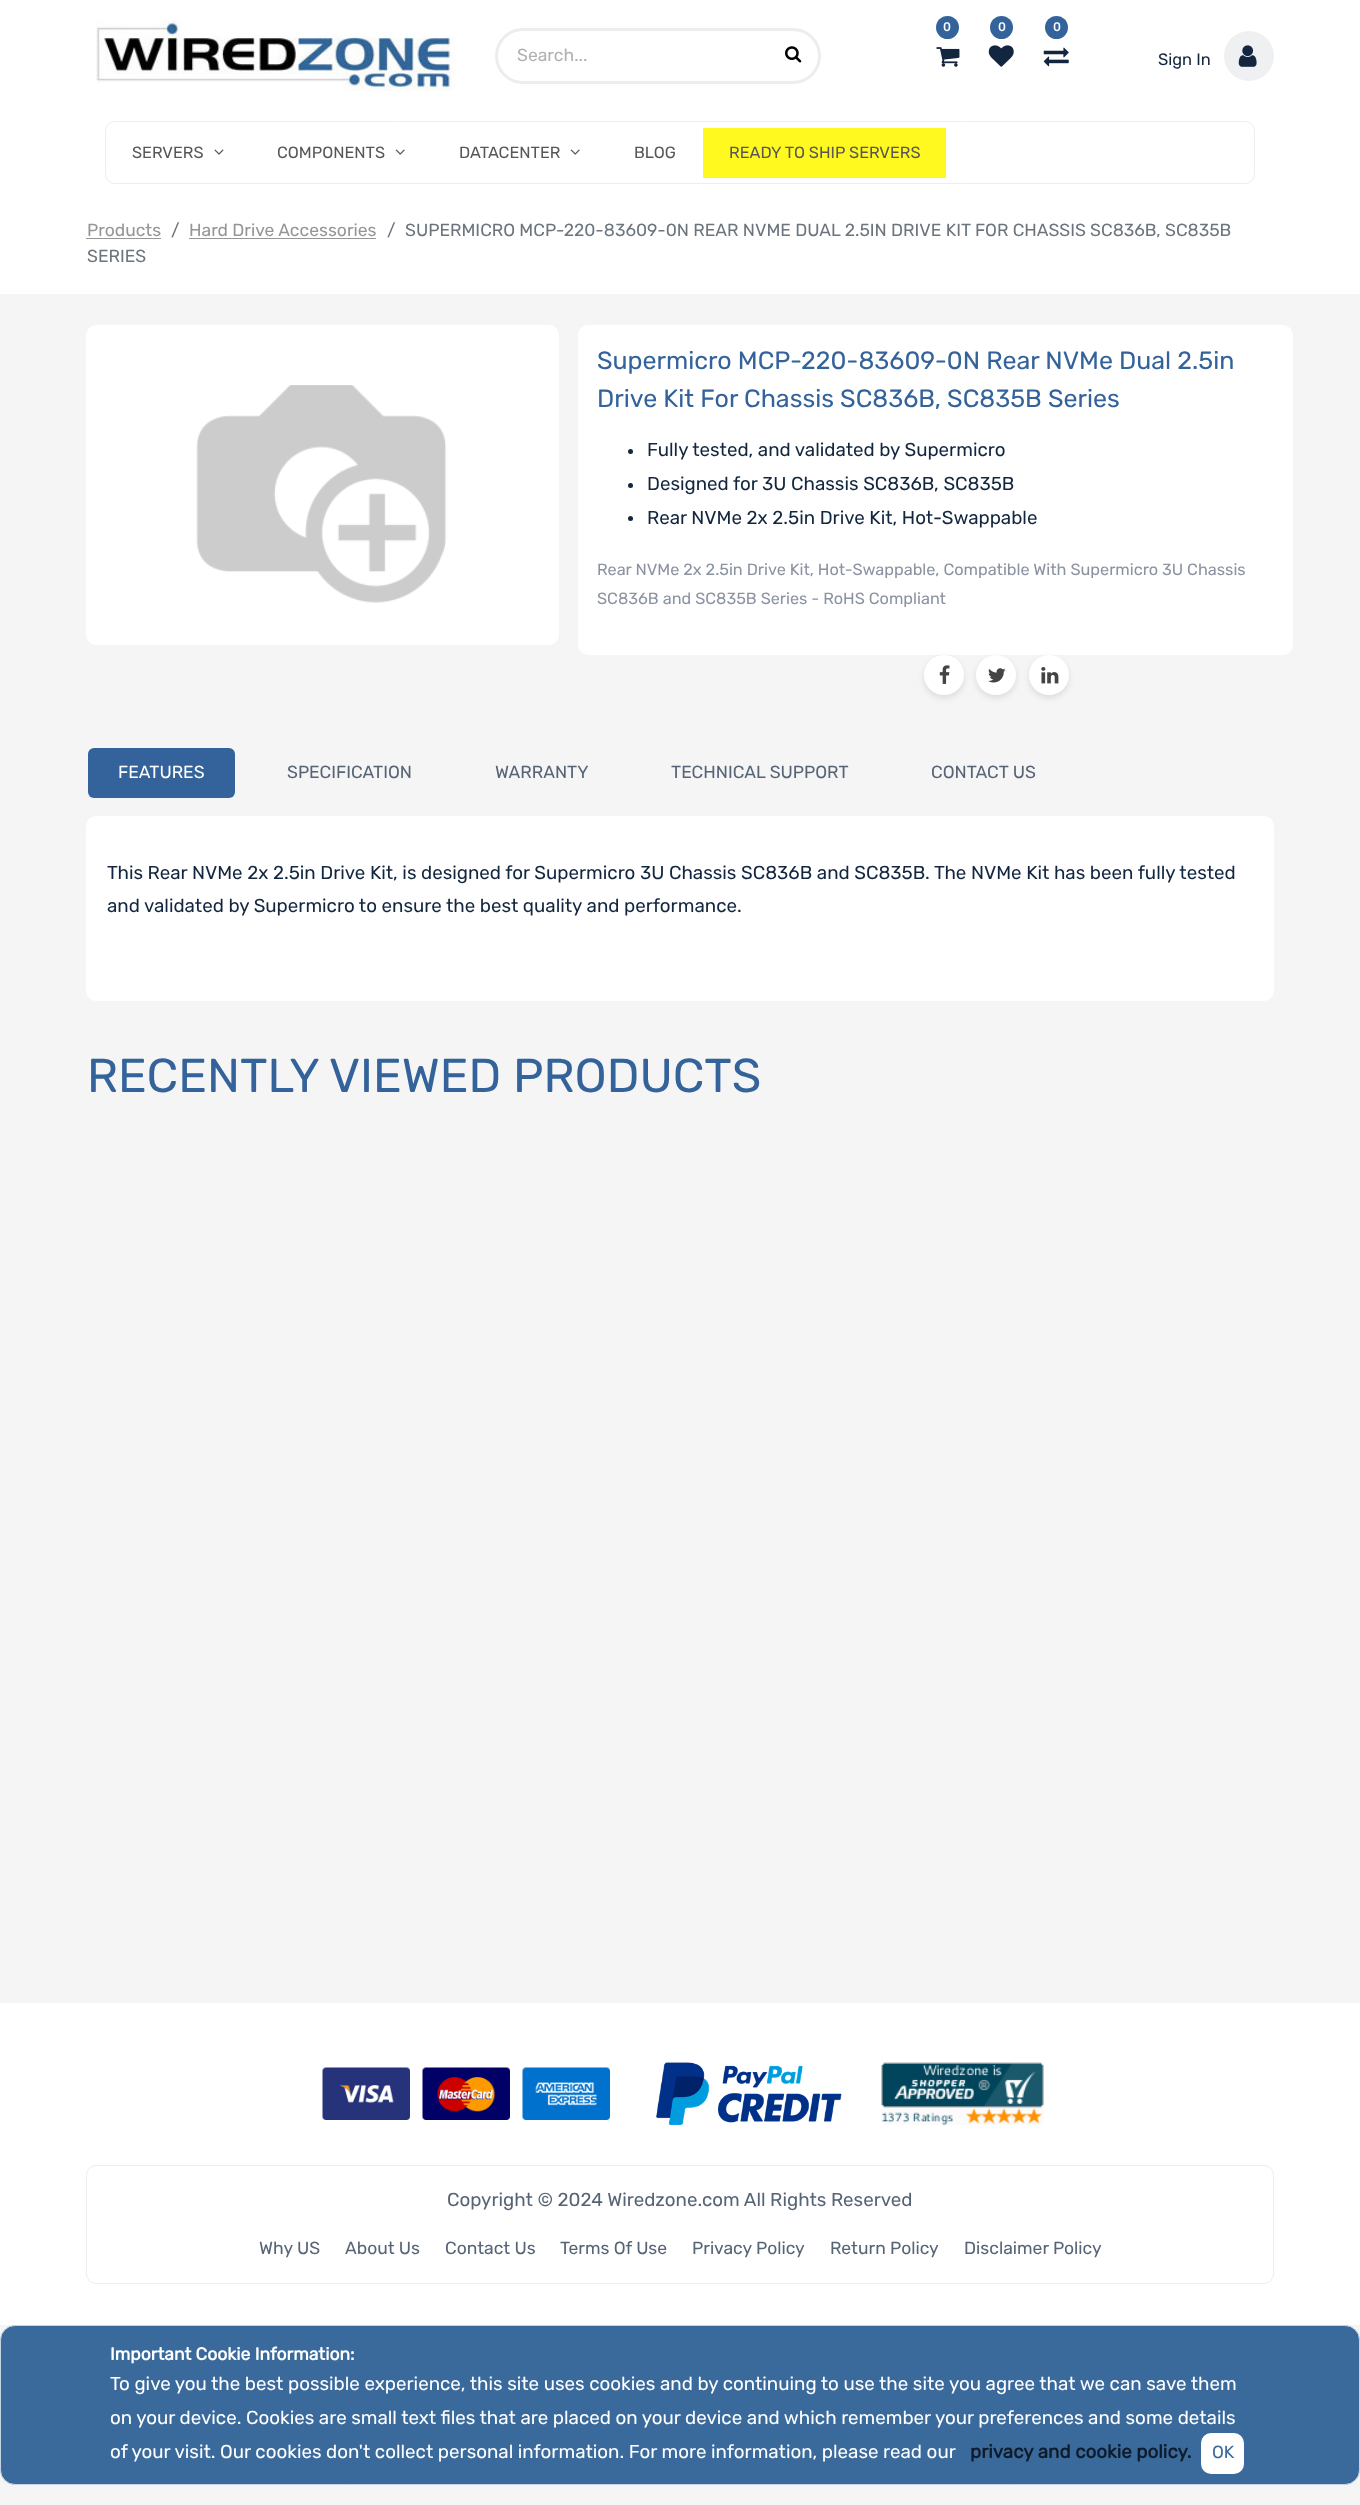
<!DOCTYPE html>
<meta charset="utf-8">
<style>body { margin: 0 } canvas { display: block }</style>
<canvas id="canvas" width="1360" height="2505"></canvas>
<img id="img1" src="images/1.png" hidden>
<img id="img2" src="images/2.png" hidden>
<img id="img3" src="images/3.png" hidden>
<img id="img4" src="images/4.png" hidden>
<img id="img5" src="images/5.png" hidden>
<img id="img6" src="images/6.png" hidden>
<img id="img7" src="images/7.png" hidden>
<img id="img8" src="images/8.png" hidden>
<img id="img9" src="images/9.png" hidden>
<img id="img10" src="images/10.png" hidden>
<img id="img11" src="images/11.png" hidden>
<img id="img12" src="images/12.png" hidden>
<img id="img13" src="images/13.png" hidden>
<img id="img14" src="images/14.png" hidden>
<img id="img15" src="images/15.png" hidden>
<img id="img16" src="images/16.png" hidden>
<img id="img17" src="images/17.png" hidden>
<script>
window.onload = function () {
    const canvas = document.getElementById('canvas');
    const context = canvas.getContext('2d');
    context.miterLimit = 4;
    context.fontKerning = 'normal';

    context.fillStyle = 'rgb(245, 245, 245)';
    context.fillRect(0, 0, 1360, 2505);
    context.fillStyle = 'rgb(255, 255, 255)';
    context.fillRect(0, 0, 1360, 111);
    context.drawImage(document.getElementById('img1'), 96, 20, 361, 71);
    context.fillStyle = 'rgb(51, 99, 154)';
    context.beginPath();
    context.arc(947.5, 27.5, 11.5, 0, 2 * Math.PI);
    context.fill();
    context.drawImage(document.getElementById('img2'), 936, 47, 24, 20);
    context.beginPath();
    context.arc(1001.5, 27.5, 11.5, 0, 2 * Math.PI);
    context.fill();
    context.drawImage(document.getElementById('img3'), 988, 45, 26, 22);
    context.beginPath();
    context.arc(1056.5, 27.5, 11.5, 0, 2 * Math.PI);
    context.fill();
    context.drawImage(document.getElementById('img4'), 1043, 47, 26, 20);
    context.beginPath();
    context.roundRect(496.5, 29.5, 323, 53, 26.5);
    context.strokeStyle = 'rgb(237, 237, 237)';
    context.lineWidth = 3;
    context.stroke();
    context.drawImage(document.getElementById('img5'), 785, 46, 17, 17);
    context.fillStyle = 'rgb(238, 240, 241)';
    context.beginPath();
    context.arc(1249, 56, 25, 0, 2 * Math.PI);
    context.fill();
    context.drawImage(document.getElementById('img6'), 1238, 45, 19, 22);
    context.fillStyle = 'rgb(255, 255, 255)';
    context.fillRect(0, 111, 1360, 183);
    context.beginPath();
    context.roundRect(105.5, 121.5, 1149, 62, 9.5);
    context.lineWidth = 1;
    context.stroke();
    context.drawImage(document.getElementById('img7'), 214, 149, 10, 6);
    context.drawImage(document.getElementById('img8'), 395, 149, 10, 6);
    context.drawImage(document.getElementById('img8'), 570, 149, 10, 6);
    context.fillStyle = 'rgb(255, 249, 31)';
    context.fillRect(703, 128, 243, 50);
    context.fillStyle = 'rgb(150, 150, 150)';
    context.fillRect(86, 238, 75, 1);
    context.fillRect(189, 238, 187, 1);
    context.fillStyle = 'rgb(255, 255, 255)';
    context.beginPath();
    context.roundRect(86, 325, 473, 320, 10);
    context.fill();
    context.drawImage(document.getElementById('img9'), 196, 385, 251, 218);
    context.beginPath();
    context.roundRect(578, 325, 715, 330, 10);
    context.fill();
    context.fillStyle = 'rgb(19, 38, 63)';
    context.beginPath();
    context.arc(630.5, 451.5, 2.5, 0, 2 * Math.PI);
    context.fill();
    context.beginPath();
    context.arc(630.5, 485.5, 2.5, 0, 2 * Math.PI);
    context.fill();
    context.beginPath();
    context.arc(630.5, 518.5, 2.5, 0, 2 * Math.PI);
    context.fill();
    context.fillStyle = 'rgba(0, 0, 0, 0.1)';
    context.filter = 'blur(3px)';
    context.beginPath();
    context.roundRect(924, 658, 40, 40, 20);
    context.fill();
    context.filter = 'none';
    context.fillStyle = 'rgb(255, 255, 255)';
    context.beginPath();
    context.arc(944, 675, 20, 0, 2 * Math.PI);
    context.fill();
    context.drawImage(document.getElementById('img10'), 939, 665, 11, 19);
    context.fillStyle = 'rgba(0, 0, 0, 0.1)';
    context.filter = 'blur(3px)';
    context.beginPath();
    context.roundRect(976, 658, 40, 40, 20);
    context.fill();
    context.filter = 'none';
    context.fillStyle = 'rgb(255, 255, 255)';
    context.beginPath();
    context.arc(996, 675, 20, 0, 2 * Math.PI);
    context.fill();
    context.drawImage(document.getElementById('img11'), 988, 668, 18, 15);
    context.fillStyle = 'rgba(0, 0, 0, 0.1)';
    context.filter = 'blur(3px)';
    context.beginPath();
    context.roundRect(1029, 658, 40, 40, 20);
    context.fill();
    context.filter = 'none';
    context.fillStyle = 'rgb(255, 255, 255)';
    context.beginPath();
    context.arc(1049, 675, 20, 0, 2 * Math.PI);
    context.fill();
    context.drawImage(document.getElementById('img12'), 1041, 667, 18, 17);
    context.fillStyle = 'rgb(51, 99, 154)';
    context.beginPath();
    context.roundRect(88, 748, 147, 50, 6);
    context.fill();
    context.fillStyle = 'rgb(255, 255, 255)';
    context.beginPath();
    context.roundRect(86, 816, 1188, 185, 10);
    context.fill();
    context.fillRect(0, 2003, 1360, 322);
    context.drawImage(document.getElementById('img13'), 322, 2067, 88, 53);
    context.drawImage(document.getElementById('img14'), 422, 2067, 88, 53);
    context.drawImage(document.getElementById('img15'), 522, 2067, 88, 53);
    context.drawImage(document.getElementById('img16'), 656, 2062, 186, 63);
    context.drawImage(document.getElementById('img17'), 881, 2062, 163, 63);
    context.beginPath();
    context.roundRect(86.5, 2165.5, 1187, 118, 9.5);
    context.stroke();
    context.fillStyle = 'rgb(58, 106, 156)';
    context.beginPath();
    context.roundRect(0.5, 2325.5, 1359, 159, 14.5);
    context.fill();
    context.strokeStyle = 'rgb(198, 211, 227)';
    context.stroke();
    context.fillStyle = 'rgb(255, 255, 255)';
    context.beginPath();
    context.roundRect(1201, 2433, 43, 41, 10);
    context.fill();
    context.font = 'bold 12px Rubik';
    context.fillText('0', 943, 31);
    context.fillText('0', 998, 31);
    context.fillText('0', 1053, 31);
    context.font = '300 17.5px Rubik';
    context.fillStyle = 'rgb(177, 177, 177)';
    context.fillText('Search...', 517, 61);
    context.font = '300 16.5px Rubik';
    context.fillStyle = 'rgb(19, 38, 63)';
    context.fillText('Sign In', 1158, 65);
    context.font = '300 16.25px Rubik';
    context.fillStyle = 'rgb(87, 87, 87)';
    context.fillText('SERVERS', 132, 158);
    context.fillText('COMPONENTS', 277, 158);
    context.fillText('DATACENTER', 459, 158);
    context.fillText('BLOG', 634, 158);
    context.fillText('READY TO SHIP SERVERS', 729, 158);
    context.font = '300 17.5px Rubik';
    context.fillStyle = 'rgb(108, 117, 125)';
    context.fillText('/', 387, 236);
    context.fillText('SUPERMICRO MCP-220-83609-0N REAR NVME DUAL 2.5IN DRIVE KIT FOR CHASSIS SC836B, SC835B', 405, 236);
    context.fillText('SERIES', 87, 262);
    context.fillStyle = 'rgb(150, 150, 150)';
    context.fillText('Products', 87, 236);
    context.fillStyle = 'rgb(108, 117, 125)';
    context.fillText('/', 171, 236);
    context.fillStyle = 'rgb(150, 150, 150)';
    context.fillText('Hard Drive Accessories', 189, 236);
    context.font = '300 25px Rubik';
    context.fillStyle = 'rgb(51, 99, 154)';
    context.fillText('Supermicro MCP-220-83609-0N Rear NVMe Dual 2.5in', 597, 369);
    context.fillText('Drive Kit For Chassis SC836B, SC835B Series', 597, 407);
    context.font = '300 18.75px Rubik';
    context.fillStyle = 'rgb(19, 38, 63)';
    context.fillText('Fully tested, and validated by Supermicro', 647, 456);
    context.fillText('Designed for 3U Chassis SC836B, SC835B', 647, 490);
    context.fillText('Rear NVMe 2x 2.5in Drive Kit, Hot-Swappable', 647, 524);
    context.font = '300 16.25px Rubik';
    context.fillStyle = 'rgb(139, 147, 161)';
    context.fillText('Rear NVMe 2x 2.5in Drive Kit, Hot-Swappable, Compatible With Supermicro 3U Chassis', 597, 575);
    context.fillText('SC836B and SC835B Series - RoHS Compliant', 597, 604);
    context.font = '300 17.5px Rubik';
    context.fillStyle = 'rgb(255, 255, 255)';
    context.fillText('FEATURES', 118, 778);
    context.fillStyle = 'rgb(86, 100, 118)';
    context.fillText('SPECIFICATION', 287, 778);
    context.fillText('WARRANTY', 495, 778);
    context.fillText('TECHNICAL SUPPORT', 671, 778);
    context.fillText('CONTACT US', 931, 778);
    context.font = '300 18.75px Rubik';
    context.fillStyle = 'rgb(19, 38, 63)';
    context.fillText('This Rear NVMe 2x 2.5in Drive Kit, is designed for Supermicro 3U Chassis SC836B and SC835B. The NVMe Kit has been fully tested', 107, 879);
    context.fillText('and validated by Supermicro to ensure the best quality and performance.', 107, 912);
    context.font = '300 47.5px Rubik';
    context.fillStyle = 'rgb(51, 99, 154)';
    context.fillText('RECENTLY VIEWED PRODUCTS', 87, 1092);
    context.font = '300 18.75px Rubik';
    context.fillStyle = 'rgb(86, 100, 118)';
    context.fillText('Copyright © 2024 Wiredzone.com All Rights Reserved', 447, 2206);
    context.font = '300 17.5px Rubik';
    context.fillText('Why US', 259, 2254);
    context.fillText('About Us', 345, 2254);
    context.fillText('Contact Us', 445, 2254);
    context.fillText('Terms Of Use', 560, 2254);
    context.fillText('Privacy Policy', 692, 2254);
    context.fillText('Return Policy', 830, 2254);
    context.fillText('Disclaimer Policy', 964, 2254);
    context.font = 'bold 17.5px Rubik';
    context.fillStyle = 'rgb(255, 255, 255)';
    context.fillText('Important Cookie Information:', 110, 2360);
    context.font = '300 18.75px Rubik';
    context.fillText('To give you the best possible experience, this site uses cookies and by continuing to use the site you agree that we can save them', 110, 2390);
    context.fillText('on your device. Cookies are small text files that are placed on your device and which remember your preferences and some details', 110, 2424);
    context.fillText('of your visit. Our cookies don\'t collect personal information. For more information, please read our', 110, 2458);
    context.font = 'bold 18.75px Rubik';
    context.fillStyle = 'rgb(14, 27, 42)';
    context.fillText('privacy and cookie policy.', 970, 2458);
    context.font = '300 17.5px Rubik';
    context.fillStyle = 'rgb(58, 106, 156)';
    context.fillText('OK', 1212, 2458);
};
</script>
